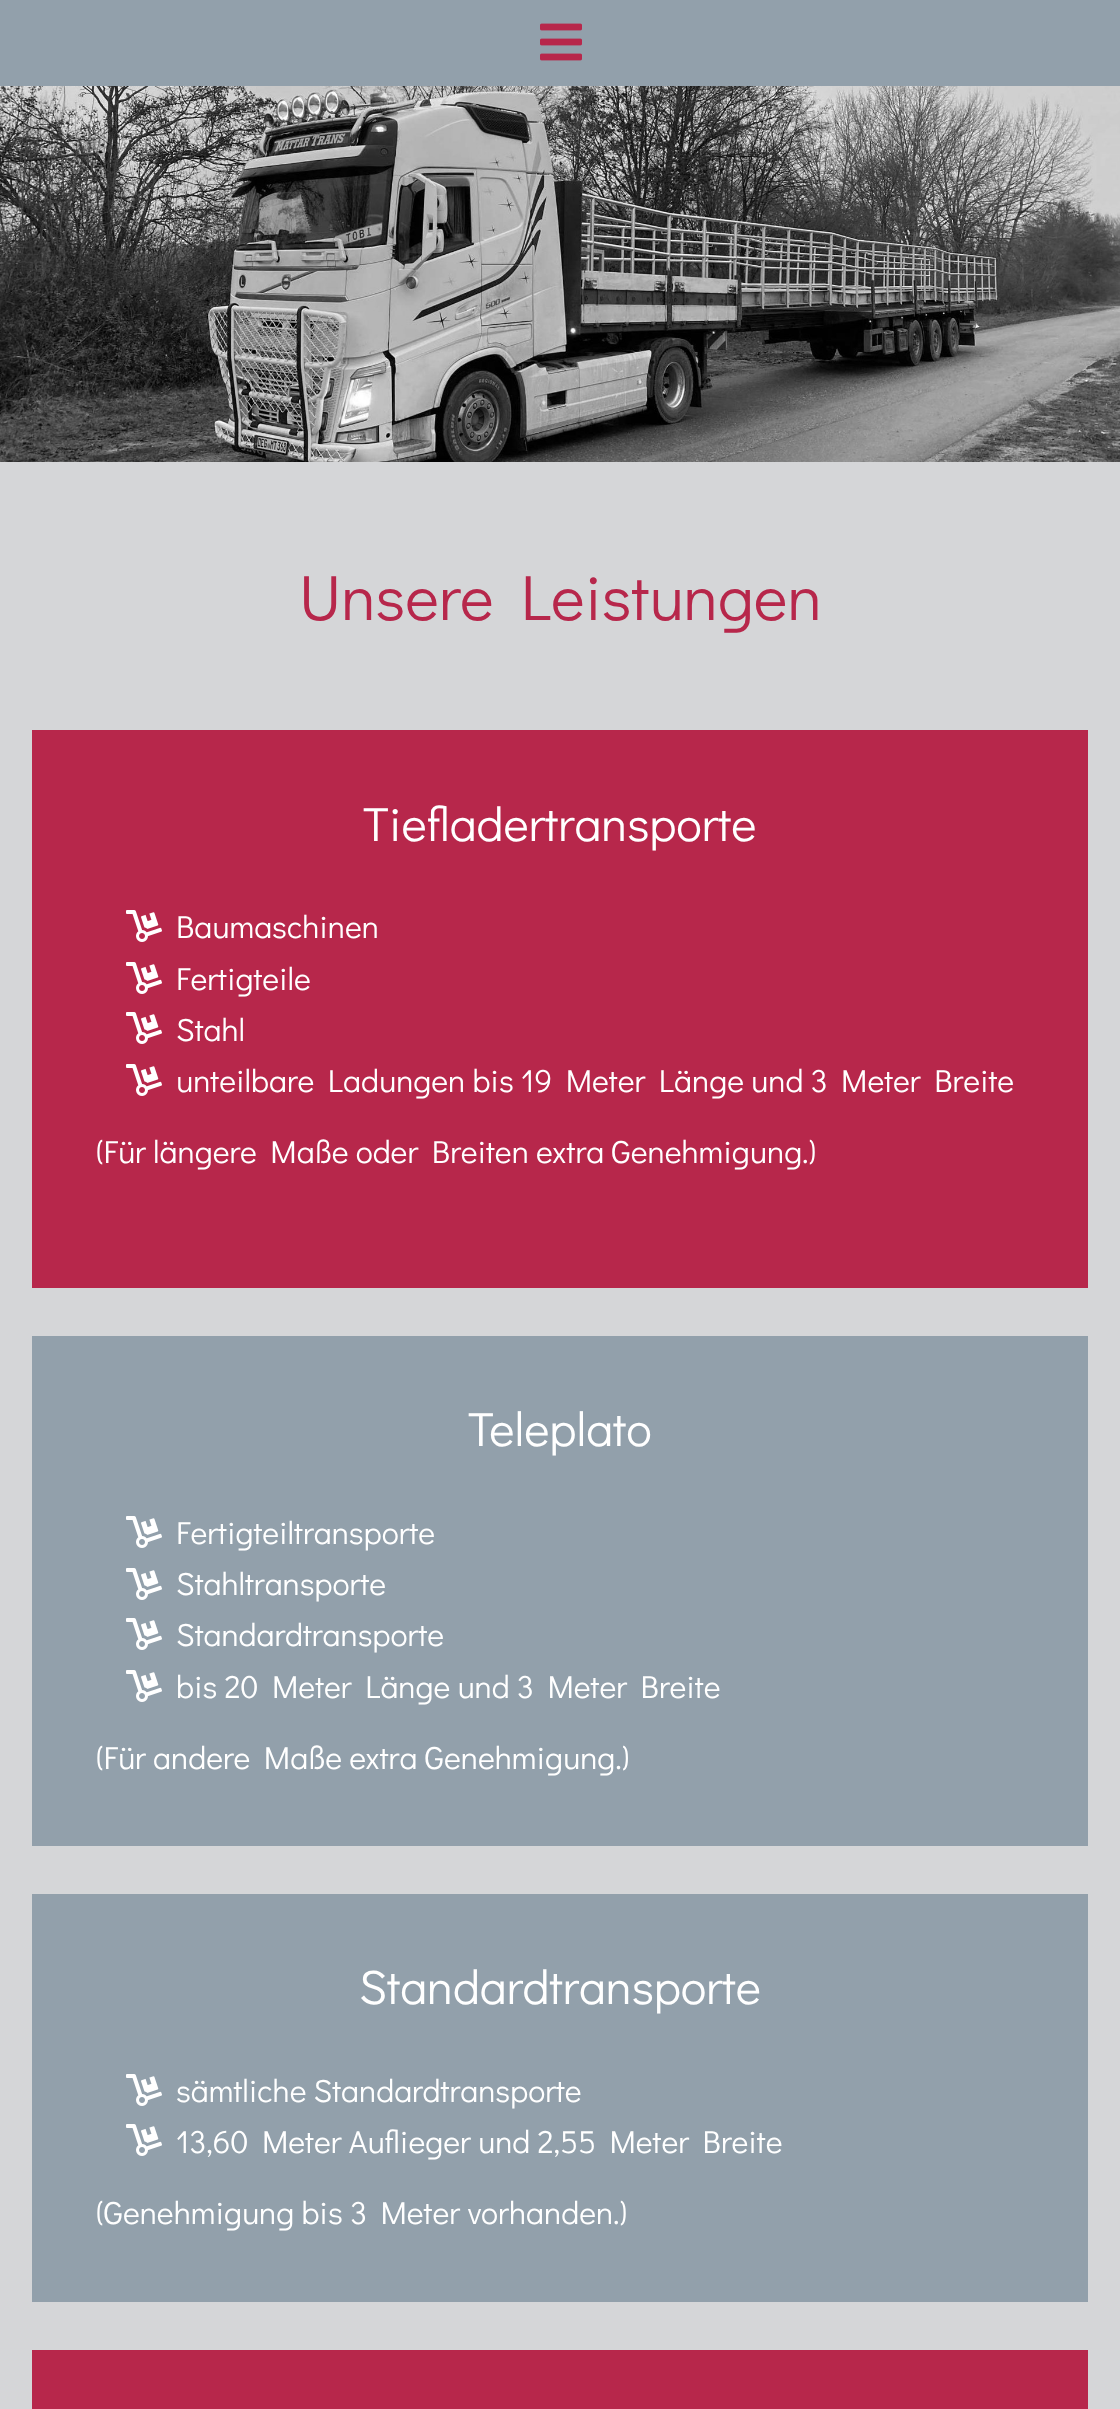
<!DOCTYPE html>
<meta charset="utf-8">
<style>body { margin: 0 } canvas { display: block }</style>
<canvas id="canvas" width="1120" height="2409"></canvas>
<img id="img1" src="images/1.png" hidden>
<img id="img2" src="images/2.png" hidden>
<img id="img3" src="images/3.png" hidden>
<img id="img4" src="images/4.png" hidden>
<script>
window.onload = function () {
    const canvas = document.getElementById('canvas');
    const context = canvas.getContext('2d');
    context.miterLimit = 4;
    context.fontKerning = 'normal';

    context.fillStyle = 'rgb(213, 214, 216)';
    context.fillRect(0, 0, 1120, 2409);
    context.fillStyle = 'rgb(146, 160, 171)';
    context.fillRect(0, 0, 1120, 86);
    context.drawImage(document.getElementById('img1'), 540, 23, 42, 38);
    context.drawImage(document.getElementById('img2'), 0, 86, 1120, 376);
    context.fillStyle = 'rgb(183, 39, 75)';
    context.fillRect(32, 730, 1056, 558);
    context.drawImage(document.getElementById('img3'), 126, 910, 36, 32);
    context.drawImage(document.getElementById('img3'), 126, 962, 36, 32);
    context.drawImage(document.getElementById('img3'), 126, 1012, 36, 32);
    context.drawImage(document.getElementById('img3'), 126, 1064, 36, 32);
    context.fillStyle = 'rgb(146, 160, 171)';
    context.fillRect(32, 1336, 1056, 510);
    context.drawImage(document.getElementById('img4'), 126, 1516, 36, 32);
    context.drawImage(document.getElementById('img4'), 126, 1568, 36, 32);
    context.drawImage(document.getElementById('img4'), 126, 1618, 36, 32);
    context.drawImage(document.getElementById('img4'), 126, 1670, 36, 32);
    context.fillRect(32, 1894, 1056, 408);
    context.drawImage(document.getElementById('img4'), 126, 2074, 36, 32);
    context.drawImage(document.getElementById('img4'), 126, 2124, 36, 32);
    context.fillStyle = 'rgb(183, 39, 75)';
    context.fillRect(32, 2350, 1056, 59);
    context.font = '64px Didact Gothic';
    context.fillText('Unsere Leistungen', 299, 620);
    context.font = '48px Didact Gothic';
    context.fillStyle = 'rgb(255, 255, 255)';
    context.fillText('Tiefladertransporte', 363, 841);
    context.font = '32px Didact Gothic';
    context.fillText('Baumaschinen', 176, 938);
    context.fillText('Fertigteile', 176, 990);
    context.fillText('Stahl', 176, 1041);
    context.fillText('unteilbare Ladungen bis 19 Meter Länge und 3 Meter Breite', 176, 1092);
    context.fillText('(Für längere Maße oder Breiten extra Genehmigung.)', 96, 1163);
    context.font = '48px Didact Gothic';
    context.fillText('Teleplato', 468, 1446);
    context.font = '32px Didact Gothic';
    context.fillText('Fertigteiltransporte', 176, 1544);
    context.fillText('Stahltransporte', 176, 1595);
    context.fillText('Standardtransporte', 176, 1646);
    context.fillText('bis 20 Meter Länge und 3 Meter Breite', 176, 1698);
    context.fillText('(Für andere Maße extra Genehmigung.)', 96, 1769);
    context.font = '48px Didact Gothic';
    context.fillText('Standardtransporte', 359, 2004);
    context.font = '32px Didact Gothic';
    context.fillText('sämtliche Standardtransporte', 176, 2102);
    context.fillText('13,60 Meter Auflieger und 2,55 Meter Breite', 176, 2153);
    context.fillText('(Genehmigung bis 3 Meter vorhanden.)', 96, 2224);
};
</script>
